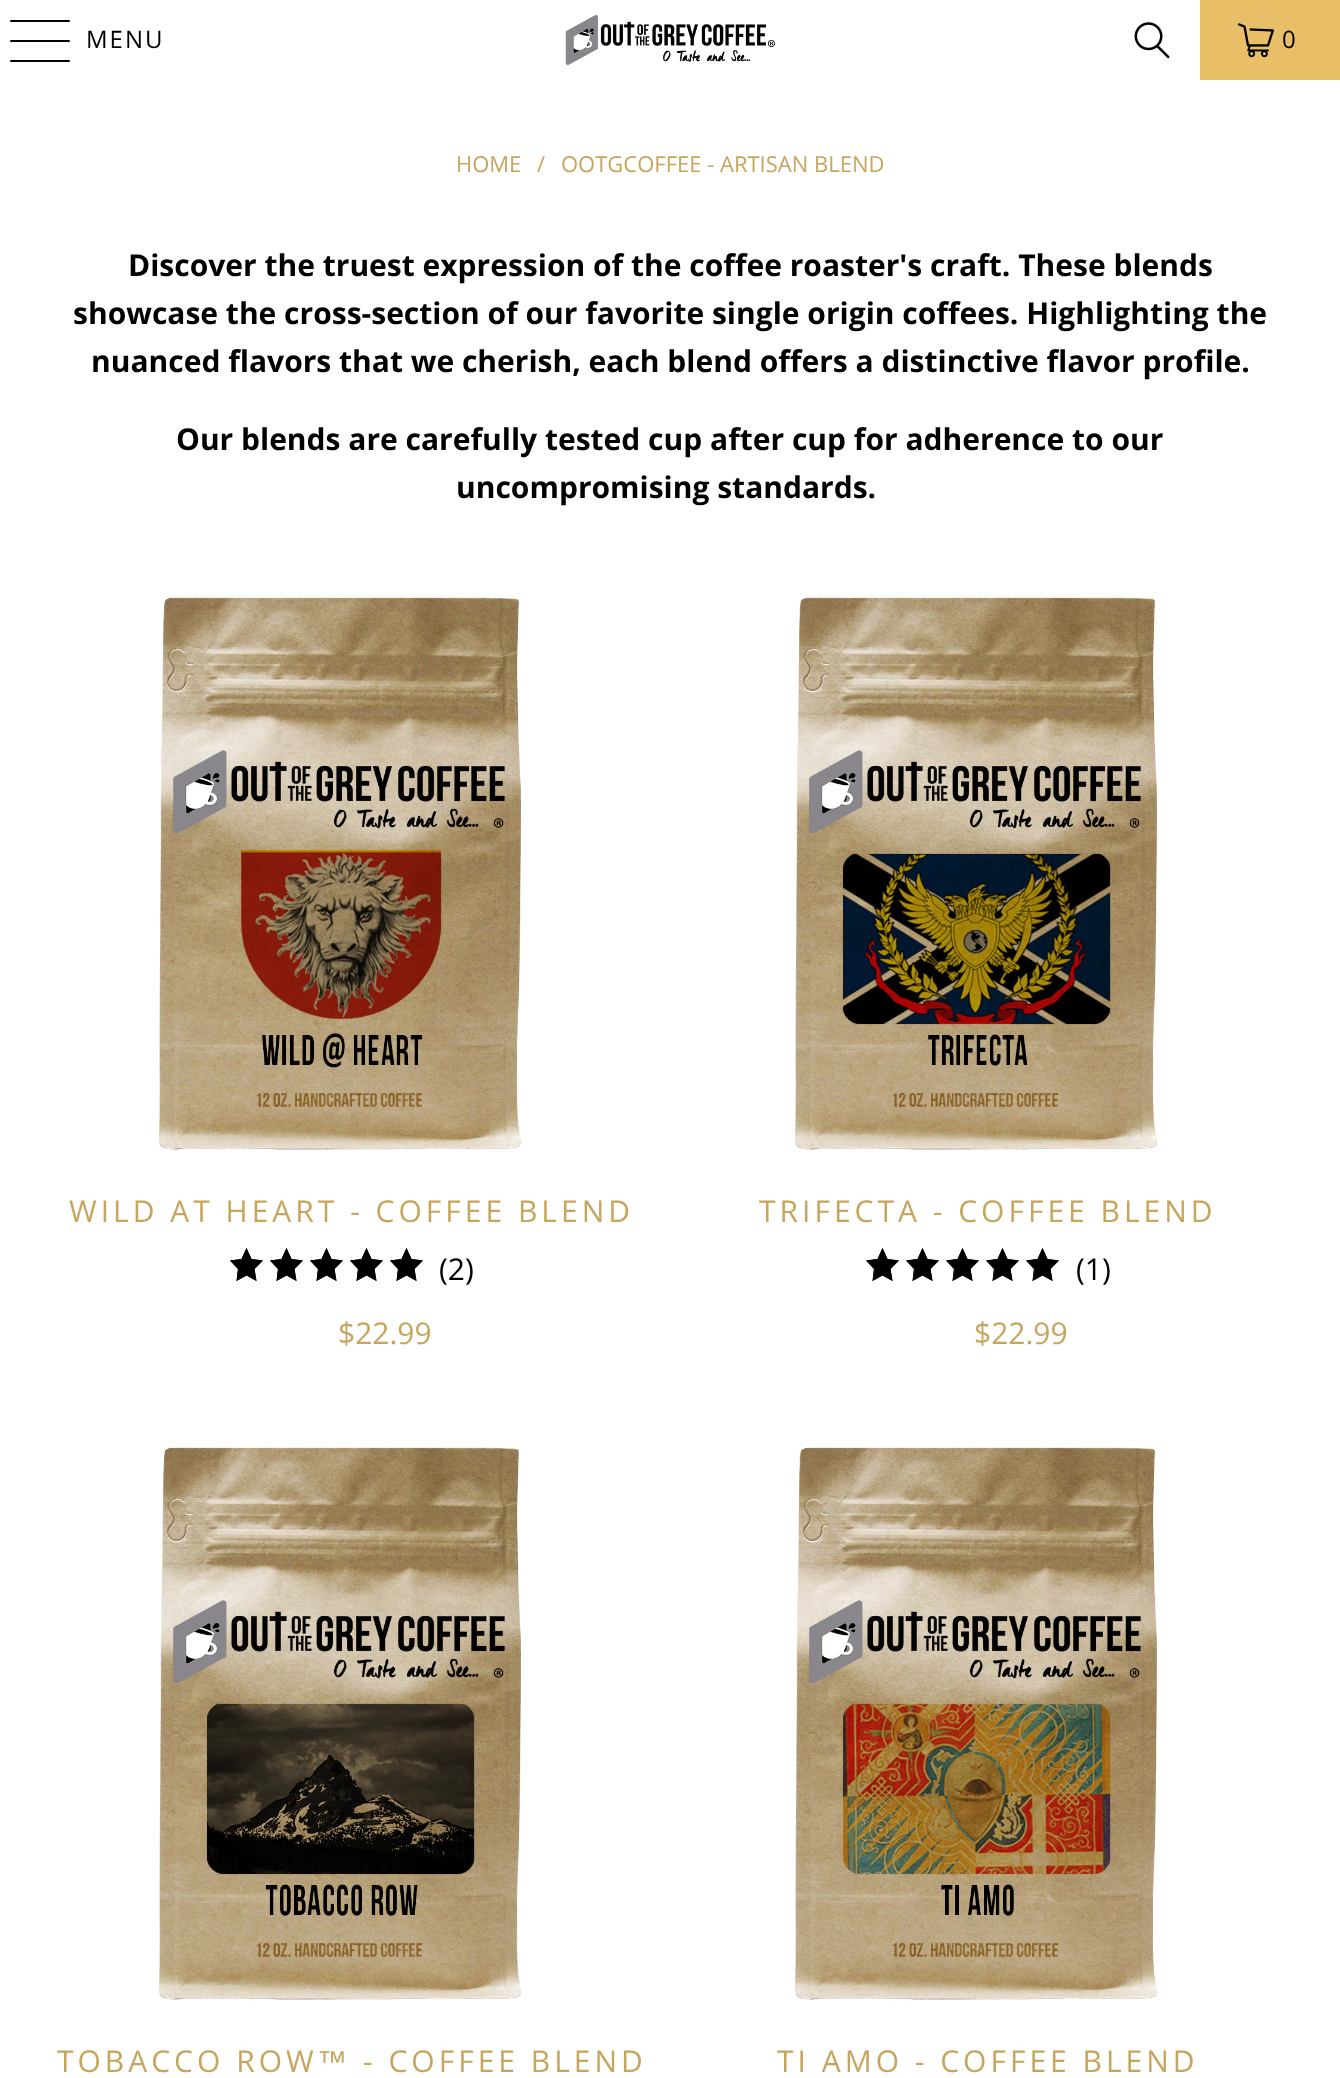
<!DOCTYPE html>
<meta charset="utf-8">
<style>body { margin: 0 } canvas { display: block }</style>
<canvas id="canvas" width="1340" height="2078"></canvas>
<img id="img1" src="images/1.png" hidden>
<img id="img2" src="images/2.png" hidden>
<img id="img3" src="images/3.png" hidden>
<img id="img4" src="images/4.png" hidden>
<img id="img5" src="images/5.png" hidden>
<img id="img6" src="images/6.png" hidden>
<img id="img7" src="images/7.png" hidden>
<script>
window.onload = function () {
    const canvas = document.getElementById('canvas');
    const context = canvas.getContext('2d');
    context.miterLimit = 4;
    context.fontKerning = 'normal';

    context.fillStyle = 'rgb(255, 255, 255)';
    context.fillRect(0, 0, 1340, 2078);
    context.fillStyle = 'rgb(0, 0, 0)';
    context.beginPath();
    context.roundRect(10, 20, 60, 2, 1);
    context.fill();
    context.beginPath();
    context.roundRect(10, 40, 60, 2, 1);
    context.fill();
    context.beginPath();
    context.roundRect(10, 60, 60, 2, 1);
    context.fill();
    context.drawImage(document.getElementById('img1'), 565, 14, 210, 52);
    context.drawImage(document.getElementById('img2'), 1134, 22, 36, 37);
    context.fillStyle = 'rgb(232, 191, 103)';
    context.fillRect(1200, 0, 140, 80);
    context.drawImage(document.getElementById('img3'), 1238, 23, 36, 35);
    context.drawImage(document.getElementById('img4'), 159, 595, 363, 557);
    context.fillStyle = 'rgb(0, 0, 0)';
    context.beginPath();
    context.moveTo(246.5, 1248);
    context.lineTo(241.5, 1259);
    context.lineTo(230, 1260.5);
    context.lineTo(238, 1269);
    context.lineTo(236.5, 1281);
    context.lineTo(246.5, 1275.5);
    context.lineTo(256.5, 1281);
    context.lineTo(254.5, 1269);
    context.lineTo(263, 1260.5);
    context.lineTo(251.5, 1259);
    context.closePath();
    context.fill();
    context.save();
    context.beginPath();
    context.moveTo(246.5, 1248);
    context.lineTo(251.5, 1259);
    context.lineTo(263, 1260.5);
    context.lineTo(254.5, 1269);
    context.lineTo(256.5, 1281);
    context.lineTo(246.5, 1275.5);
    context.lineTo(236.5, 1281);
    context.lineTo(238, 1269);
    context.lineTo(230, 1260.5);
    context.lineTo(241.5, 1259);
    context.closePath();
    context.clip();
    context.beginPath();
    context.moveTo(246.5, 1248);
    context.lineTo(251.5, 1259);
    context.lineTo(263, 1260.5);
    context.lineTo(254.5, 1269);
    context.lineTo(256.5, 1281);
    context.lineTo(246.5, 1275.5);
    context.lineTo(236.5, 1281);
    context.lineTo(238, 1269);
    context.lineTo(230, 1260.5);
    context.lineTo(241.5, 1259);
    context.closePath();
    context.strokeStyle = 'rgb(0, 0, 0)';
    context.lineWidth = 4.7;
    context.lineCap = 'round';
    context.lineJoin = 'round';
    context.stroke();
    context.restore();
    context.beginPath();
    context.moveTo(286.5, 1248);
    context.lineTo(281.5, 1259);
    context.lineTo(270, 1260.5);
    context.lineTo(278, 1269);
    context.lineTo(276.5, 1281);
    context.lineTo(286.5, 1275.5);
    context.lineTo(296.5, 1281);
    context.lineTo(294.5, 1269);
    context.lineTo(303, 1260.5);
    context.lineTo(291.5, 1259);
    context.closePath();
    context.fill();
    context.save();
    context.beginPath();
    context.moveTo(286.5, 1248);
    context.lineTo(291.5, 1259);
    context.lineTo(303, 1260.5);
    context.lineTo(294.5, 1269);
    context.lineTo(296.5, 1281);
    context.lineTo(286.5, 1275.5);
    context.lineTo(276.5, 1281);
    context.lineTo(278, 1269);
    context.lineTo(270, 1260.5);
    context.lineTo(281.5, 1259);
    context.closePath();
    context.clip();
    context.beginPath();
    context.moveTo(286.5, 1248);
    context.lineTo(291.5, 1259);
    context.lineTo(303, 1260.5);
    context.lineTo(294.5, 1269);
    context.lineTo(296.5, 1281);
    context.lineTo(286.5, 1275.5);
    context.lineTo(276.5, 1281);
    context.lineTo(278, 1269);
    context.lineTo(270, 1260.5);
    context.lineTo(281.5, 1259);
    context.closePath();
    context.strokeStyle = 'rgb(0, 0, 0)';
    context.lineWidth = 4.7;
    context.lineCap = 'round';
    context.lineJoin = 'round';
    context.stroke();
    context.restore();
    context.beginPath();
    context.moveTo(326.5, 1248);
    context.lineTo(321.5, 1259);
    context.lineTo(310, 1260.5);
    context.lineTo(318, 1269);
    context.lineTo(316.5, 1281);
    context.lineTo(326.5, 1275.5);
    context.lineTo(336.5, 1281);
    context.lineTo(334.5, 1269);
    context.lineTo(343, 1260.5);
    context.lineTo(331.5, 1259);
    context.closePath();
    context.fill();
    context.save();
    context.beginPath();
    context.moveTo(326.5, 1248);
    context.lineTo(331.5, 1259);
    context.lineTo(343, 1260.5);
    context.lineTo(334.5, 1269);
    context.lineTo(336.5, 1281);
    context.lineTo(326.5, 1275.5);
    context.lineTo(316.5, 1281);
    context.lineTo(318, 1269);
    context.lineTo(310, 1260.5);
    context.lineTo(321.5, 1259);
    context.closePath();
    context.clip();
    context.beginPath();
    context.moveTo(326.5, 1248);
    context.lineTo(331.5, 1259);
    context.lineTo(343, 1260.5);
    context.lineTo(334.5, 1269);
    context.lineTo(336.5, 1281);
    context.lineTo(326.5, 1275.5);
    context.lineTo(316.5, 1281);
    context.lineTo(318, 1269);
    context.lineTo(310, 1260.5);
    context.lineTo(321.5, 1259);
    context.closePath();
    context.strokeStyle = 'rgb(0, 0, 0)';
    context.lineWidth = 4.7;
    context.lineCap = 'round';
    context.lineJoin = 'round';
    context.stroke();
    context.restore();
    context.beginPath();
    context.moveTo(366.5, 1248);
    context.lineTo(361.5, 1259);
    context.lineTo(350, 1260.5);
    context.lineTo(358, 1269);
    context.lineTo(356.5, 1281);
    context.lineTo(366.5, 1275.5);
    context.lineTo(376.5, 1281);
    context.lineTo(374.5, 1269);
    context.lineTo(383, 1260.5);
    context.lineTo(371.5, 1259);
    context.closePath();
    context.fill();
    context.save();
    context.beginPath();
    context.moveTo(366.5, 1248);
    context.lineTo(371.5, 1259);
    context.lineTo(383, 1260.5);
    context.lineTo(374.5, 1269);
    context.lineTo(376.5, 1281);
    context.lineTo(366.5, 1275.5);
    context.lineTo(356.5, 1281);
    context.lineTo(358, 1269);
    context.lineTo(350, 1260.5);
    context.lineTo(361.5, 1259);
    context.closePath();
    context.clip();
    context.beginPath();
    context.moveTo(366.5, 1248);
    context.lineTo(371.5, 1259);
    context.lineTo(383, 1260.5);
    context.lineTo(374.5, 1269);
    context.lineTo(376.5, 1281);
    context.lineTo(366.5, 1275.5);
    context.lineTo(356.5, 1281);
    context.lineTo(358, 1269);
    context.lineTo(350, 1260.5);
    context.lineTo(361.5, 1259);
    context.closePath();
    context.strokeStyle = 'rgb(0, 0, 0)';
    context.lineWidth = 4.7;
    context.lineCap = 'round';
    context.lineJoin = 'round';
    context.stroke();
    context.restore();
    context.beginPath();
    context.moveTo(406.5, 1248);
    context.lineTo(401.5, 1259);
    context.lineTo(390, 1260.5);
    context.lineTo(398, 1269);
    context.lineTo(396.5, 1281);
    context.lineTo(406.5, 1275.5);
    context.lineTo(416.5, 1281);
    context.lineTo(414.5, 1269);
    context.lineTo(423, 1260.5);
    context.lineTo(411.5, 1259);
    context.closePath();
    context.fill();
    context.save();
    context.beginPath();
    context.moveTo(406.5, 1248);
    context.lineTo(411.5, 1259);
    context.lineTo(423, 1260.5);
    context.lineTo(414.5, 1269);
    context.lineTo(416.5, 1281);
    context.lineTo(406.5, 1275.5);
    context.lineTo(396.5, 1281);
    context.lineTo(398, 1269);
    context.lineTo(390, 1260.5);
    context.lineTo(401.5, 1259);
    context.closePath();
    context.clip();
    context.beginPath();
    context.moveTo(406.5, 1248);
    context.lineTo(411.5, 1259);
    context.lineTo(423, 1260.5);
    context.lineTo(414.5, 1269);
    context.lineTo(416.5, 1281);
    context.lineTo(406.5, 1275.5);
    context.lineTo(396.5, 1281);
    context.lineTo(398, 1269);
    context.lineTo(390, 1260.5);
    context.lineTo(401.5, 1259);
    context.closePath();
    context.strokeStyle = 'rgb(0, 0, 0)';
    context.lineWidth = 4.7;
    context.lineCap = 'round';
    context.lineJoin = 'round';
    context.stroke();
    context.restore();
    context.drawImage(document.getElementById('img5'), 795, 594, 363, 558);
    context.beginPath();
    context.moveTo(882.5, 1248);
    context.lineTo(877.5, 1259);
    context.lineTo(866, 1260.5);
    context.lineTo(874, 1269);
    context.lineTo(872.5, 1281);
    context.lineTo(882.5, 1275.5);
    context.lineTo(892.5, 1281);
    context.lineTo(890.5, 1269);
    context.lineTo(899, 1260.5);
    context.lineTo(887.5, 1259);
    context.closePath();
    context.fill();
    context.save();
    context.beginPath();
    context.moveTo(882.5, 1248);
    context.lineTo(887.5, 1259);
    context.lineTo(899, 1260.5);
    context.lineTo(890.5, 1269);
    context.lineTo(892.5, 1281);
    context.lineTo(882.5, 1275.5);
    context.lineTo(872.5, 1281);
    context.lineTo(874, 1269);
    context.lineTo(866, 1260.5);
    context.lineTo(877.5, 1259);
    context.closePath();
    context.clip();
    context.beginPath();
    context.moveTo(882.5, 1248);
    context.lineTo(887.5, 1259);
    context.lineTo(899, 1260.5);
    context.lineTo(890.5, 1269);
    context.lineTo(892.5, 1281);
    context.lineTo(882.5, 1275.5);
    context.lineTo(872.5, 1281);
    context.lineTo(874, 1269);
    context.lineTo(866, 1260.5);
    context.lineTo(877.5, 1259);
    context.closePath();
    context.strokeStyle = 'rgb(0, 0, 0)';
    context.lineWidth = 4.7;
    context.lineCap = 'round';
    context.lineJoin = 'round';
    context.stroke();
    context.restore();
    context.beginPath();
    context.moveTo(922.5, 1248);
    context.lineTo(917.5, 1259);
    context.lineTo(906, 1260.5);
    context.lineTo(914, 1269);
    context.lineTo(912.5, 1281);
    context.lineTo(922.5, 1275.5);
    context.lineTo(932.5, 1281);
    context.lineTo(930.5, 1269);
    context.lineTo(939, 1260.5);
    context.lineTo(927.5, 1259);
    context.closePath();
    context.fill();
    context.save();
    context.beginPath();
    context.moveTo(922.5, 1248);
    context.lineTo(927.5, 1259);
    context.lineTo(939, 1260.5);
    context.lineTo(930.5, 1269);
    context.lineTo(932.5, 1281);
    context.lineTo(922.5, 1275.5);
    context.lineTo(912.5, 1281);
    context.lineTo(914, 1269);
    context.lineTo(906, 1260.5);
    context.lineTo(917.5, 1259);
    context.closePath();
    context.clip();
    context.beginPath();
    context.moveTo(922.5, 1248);
    context.lineTo(927.5, 1259);
    context.lineTo(939, 1260.5);
    context.lineTo(930.5, 1269);
    context.lineTo(932.5, 1281);
    context.lineTo(922.5, 1275.5);
    context.lineTo(912.5, 1281);
    context.lineTo(914, 1269);
    context.lineTo(906, 1260.5);
    context.lineTo(917.5, 1259);
    context.closePath();
    context.strokeStyle = 'rgb(0, 0, 0)';
    context.lineWidth = 4.7;
    context.lineCap = 'round';
    context.lineJoin = 'round';
    context.stroke();
    context.restore();
    context.beginPath();
    context.moveTo(962.5, 1248);
    context.lineTo(957.5, 1259);
    context.lineTo(946, 1260.5);
    context.lineTo(954, 1269);
    context.lineTo(952.5, 1281);
    context.lineTo(962.5, 1275.5);
    context.lineTo(972.5, 1281);
    context.lineTo(970.5, 1269);
    context.lineTo(979, 1260.5);
    context.lineTo(967.5, 1259);
    context.closePath();
    context.fill();
    context.save();
    context.beginPath();
    context.moveTo(962.5, 1248);
    context.lineTo(967.5, 1259);
    context.lineTo(979, 1260.5);
    context.lineTo(970.5, 1269);
    context.lineTo(972.5, 1281);
    context.lineTo(962.5, 1275.5);
    context.lineTo(952.5, 1281);
    context.lineTo(954, 1269);
    context.lineTo(946, 1260.5);
    context.lineTo(957.5, 1259);
    context.closePath();
    context.clip();
    context.beginPath();
    context.moveTo(962.5, 1248);
    context.lineTo(967.5, 1259);
    context.lineTo(979, 1260.5);
    context.lineTo(970.5, 1269);
    context.lineTo(972.5, 1281);
    context.lineTo(962.5, 1275.5);
    context.lineTo(952.5, 1281);
    context.lineTo(954, 1269);
    context.lineTo(946, 1260.5);
    context.lineTo(957.5, 1259);
    context.closePath();
    context.strokeStyle = 'rgb(0, 0, 0)';
    context.lineWidth = 4.7;
    context.lineCap = 'round';
    context.lineJoin = 'round';
    context.stroke();
    context.restore();
    context.beginPath();
    context.moveTo(1002.5, 1248);
    context.lineTo(997.5, 1259);
    context.lineTo(986, 1260.5);
    context.lineTo(994, 1269);
    context.lineTo(992.5, 1281);
    context.lineTo(1002.5, 1275.5);
    context.lineTo(1012.5, 1281);
    context.lineTo(1010.5, 1269);
    context.lineTo(1019, 1260.5);
    context.lineTo(1007.5, 1259);
    context.closePath();
    context.fill();
    context.save();
    context.beginPath();
    context.moveTo(1002.5, 1248);
    context.lineTo(1007.5, 1259);
    context.lineTo(1019, 1260.5);
    context.lineTo(1010.5, 1269);
    context.lineTo(1012.5, 1281);
    context.lineTo(1002.5, 1275.5);
    context.lineTo(992.5, 1281);
    context.lineTo(994, 1269);
    context.lineTo(986, 1260.5);
    context.lineTo(997.5, 1259);
    context.closePath();
    context.clip();
    context.beginPath();
    context.moveTo(1002.5, 1248);
    context.lineTo(1007.5, 1259);
    context.lineTo(1019, 1260.5);
    context.lineTo(1010.5, 1269);
    context.lineTo(1012.5, 1281);
    context.lineTo(1002.5, 1275.5);
    context.lineTo(992.5, 1281);
    context.lineTo(994, 1269);
    context.lineTo(986, 1260.5);
    context.lineTo(997.5, 1259);
    context.closePath();
    context.strokeStyle = 'rgb(0, 0, 0)';
    context.lineWidth = 4.7;
    context.lineCap = 'round';
    context.lineJoin = 'round';
    context.stroke();
    context.restore();
    context.beginPath();
    context.moveTo(1042.5, 1248);
    context.lineTo(1037.5, 1259);
    context.lineTo(1026, 1260.5);
    context.lineTo(1034, 1269);
    context.lineTo(1032.5, 1281);
    context.lineTo(1042.5, 1275.5);
    context.lineTo(1052.5, 1281);
    context.lineTo(1050.5, 1269);
    context.lineTo(1059, 1260.5);
    context.lineTo(1047.5, 1259);
    context.closePath();
    context.fill();
    context.save();
    context.beginPath();
    context.moveTo(1042.5, 1248);
    context.lineTo(1047.5, 1259);
    context.lineTo(1059, 1260.5);
    context.lineTo(1050.5, 1269);
    context.lineTo(1052.5, 1281);
    context.lineTo(1042.5, 1275.5);
    context.lineTo(1032.5, 1281);
    context.lineTo(1034, 1269);
    context.lineTo(1026, 1260.5);
    context.lineTo(1037.5, 1259);
    context.closePath();
    context.clip();
    context.beginPath();
    context.moveTo(1042.5, 1248);
    context.lineTo(1047.5, 1259);
    context.lineTo(1059, 1260.5);
    context.lineTo(1050.5, 1269);
    context.lineTo(1052.5, 1281);
    context.lineTo(1042.5, 1275.5);
    context.lineTo(1032.5, 1281);
    context.lineTo(1034, 1269);
    context.lineTo(1026, 1260.5);
    context.lineTo(1037.5, 1259);
    context.closePath();
    context.strokeStyle = 'rgb(0, 0, 0)';
    context.lineWidth = 4.7;
    context.lineCap = 'round';
    context.lineJoin = 'round';
    context.stroke();
    context.restore();
    context.drawImage(document.getElementById('img6'), 159, 1445, 363, 557);
    context.drawImage(document.getElementById('img7'), 795, 1445, 363, 557);
    context.letterSpacing = '2px';
    context.font = '24px Open Sans';
    context.fillText('MENU', 86, 48);
    context.fillText('0', 1282, 48);
    context.letterSpacing = '0px';
    context.font = '22px Open Sans';
    context.fillStyle = 'rgb(199, 165, 93)';
    context.fillText('HOME', 456, 172);
    context.fillText('/', 537, 172);
    context.fillText('OOTGCOFFEE - ARTISAN BLEND', 561, 172);
    context.font = 'bold 30px Open Sans';
    context.fillStyle = 'rgb(0, 0, 0)';
    context.fillText('Discover the truest expression of the coffee roaster\'s craft. These blends', 128, 276);
    context.fillText('showcase the cross-section of our favorite single origin coffees. Highlighting the', 73, 324);
    context.fillText('nuanced flavors that we cherish, each blend offers a distinctive flavor profile.', 91, 372);
    context.fillText('Our blends are carefully tested cup after cup for adherence to our', 176, 450);
    context.fillText('uncompromising standards.', 456, 498);
    context.letterSpacing = '4px';
    context.font = '30px Open Sans';
    context.fillStyle = 'rgb(199, 165, 93)';
    context.fillText('WILD AT HEART - COFFEE BLEND', 69, 1222);
    context.letterSpacing = '0px';
    context.fillStyle = 'rgb(0, 0, 0)';
    context.fillText('(2)', 439, 1280);
    context.fillStyle = 'rgb(199, 165, 93)';
    context.fillText('$22.99', 338, 1344);
    context.letterSpacing = '4px';
    context.fillText('TRIFECTA - COFFEE BLEND', 759, 1222);
    context.letterSpacing = '0px';
    context.fillStyle = 'rgb(0, 0, 0)';
    context.fillText('(1)', 1076, 1280);
    context.fillStyle = 'rgb(199, 165, 93)';
    context.fillText('$22.99', 974, 1344);
    context.letterSpacing = '4px';
    context.fillText('TOBACCO ROW', 57, 2072);
    context.font = '30px Liberation Sans';
    context.fillText('™', 317, 2072);
    context.font = '30px Open Sans';
    context.fillText('- COFFEE BLEND', 363, 2072);
    context.fillText('TI AMO - COFFEE BLEND', 777, 2072);
};
</script>
